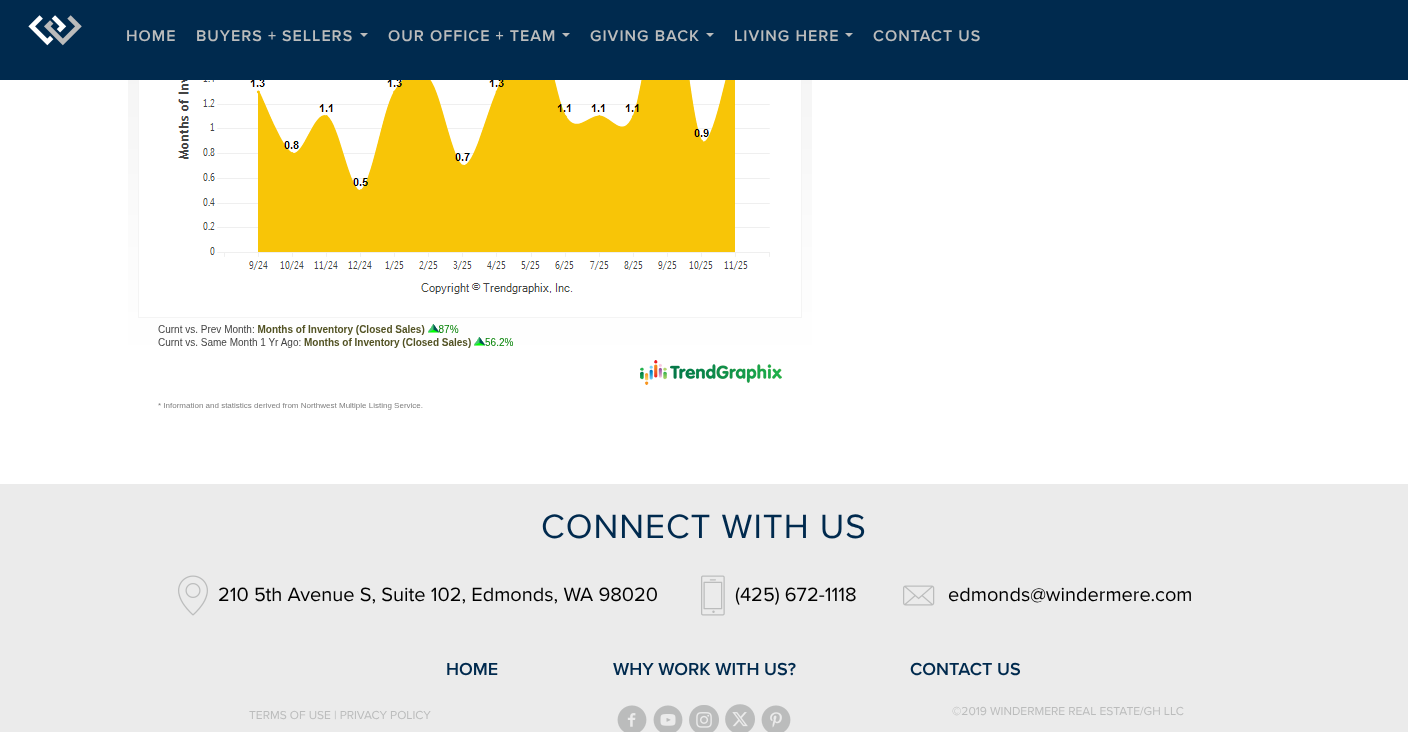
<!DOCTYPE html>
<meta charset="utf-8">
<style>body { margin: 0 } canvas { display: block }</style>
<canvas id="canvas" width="1408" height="732"></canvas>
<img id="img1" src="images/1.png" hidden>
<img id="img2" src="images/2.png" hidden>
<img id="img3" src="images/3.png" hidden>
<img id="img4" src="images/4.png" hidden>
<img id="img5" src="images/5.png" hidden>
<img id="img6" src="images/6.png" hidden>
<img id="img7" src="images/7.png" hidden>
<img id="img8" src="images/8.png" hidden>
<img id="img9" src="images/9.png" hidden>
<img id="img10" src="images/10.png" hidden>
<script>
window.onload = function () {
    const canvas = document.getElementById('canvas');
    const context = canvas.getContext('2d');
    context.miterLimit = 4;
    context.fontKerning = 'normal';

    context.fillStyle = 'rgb(255, 255, 255)';
    context.fillRect(0, 0, 1408, 732);
    context.fillStyle = 'rgb(0, 42, 78)';
    context.fillRect(0, 0, 1408, 80);
    context.drawImage(document.getElementById('img1'), 28, 15, 54, 31);
    context.fillStyle = 'rgb(187, 188, 188)';
    context.beginPath();
    context.moveTo(360, 33);
    context.lineTo(368, 33);
    context.lineTo(364, 37);
    context.closePath();
    context.fill();
    context.beginPath();
    context.moveTo(562, 33);
    context.lineTo(570, 33);
    context.lineTo(566, 37);
    context.closePath();
    context.fill();
    context.beginPath();
    context.moveTo(706, 33);
    context.lineTo(714, 33);
    context.lineTo(710, 37);
    context.closePath();
    context.fill();
    context.beginPath();
    context.moveTo(845, 33);
    context.lineTo(853, 33);
    context.lineTo(849, 37);
    context.closePath();
    context.fill();
    context.drawImage(document.getElementById('img2'), 128, 80, 684, 330);
    context.fillStyle = 'rgb(235, 235, 235)';
    context.fillRect(0, 484, 1408, 248);
    context.drawImage(document.getElementById('img3'), 178, 575, 30, 41);
    context.drawImage(document.getElementById('img4'), 701, 575, 24, 41);
    context.drawImage(document.getElementById('img5'), 903, 585, 32, 21);
    context.drawImage(document.getElementById('img6'), 617, 705, 30, 27);
    context.drawImage(document.getElementById('img7'), 653, 705, 30, 27);
    context.drawImage(document.getElementById('img8'), 689, 705, 30, 27);
    context.drawImage(document.getElementById('img9'), 725, 704, 30, 28);
    context.drawImage(document.getElementById('img10'), 761, 705, 30, 27);
    context.letterSpacing = '1px';
    context.font = '600 16px Proxima Nova';
    context.fillStyle = 'rgb(187, 188, 188)';
    context.fillText('HOME', 126, 41);
    context.fillText('BUYERS + SELLERS', 196, 41);
    context.fillText('OUR OFFICE + TEAM', 388, 41);
    context.fillText('GIVING BACK', 590, 41);
    context.fillText('LIVING HERE', 734, 41);
    context.fillText('CONTACT US', 873, 41);
    context.font = '35px Proxima Nova';
    context.fillStyle = 'rgb(0, 42, 78)';
    context.fillText('CONNECT WITH US', 541, 538);
    context.letterSpacing = '0px';
    context.font = '20px Proxima Nova';
    context.fillStyle = 'rgb(0, 0, 0)';
    context.fillText('210 5th Avenue S, Suite 102, Edmonds, WA 98020', 218, 601);
    context.fillText('(425) 672-1118', 735, 601);
    context.fillText('edmonds@windermere.com', 948, 601);
    context.font = '600 18px Proxima Nova';
    context.fillStyle = 'rgb(0, 42, 78)';
    context.fillText('HOME', 446, 675);
    context.fillText('WHY WORK WITH US?', 613, 675);
    context.fillText('CONTACT US', 910, 675);
    context.font = '12px Proxima Nova';
    context.fillStyle = 'rgb(187, 188, 188)';
    context.fillText('TERMS OF USE | PRIVACY POLICY', 249, 719);
    context.fillText('©2019 WINDERMERE REAL ESTATE/GH LLC', 952, 715);
};
</script>
